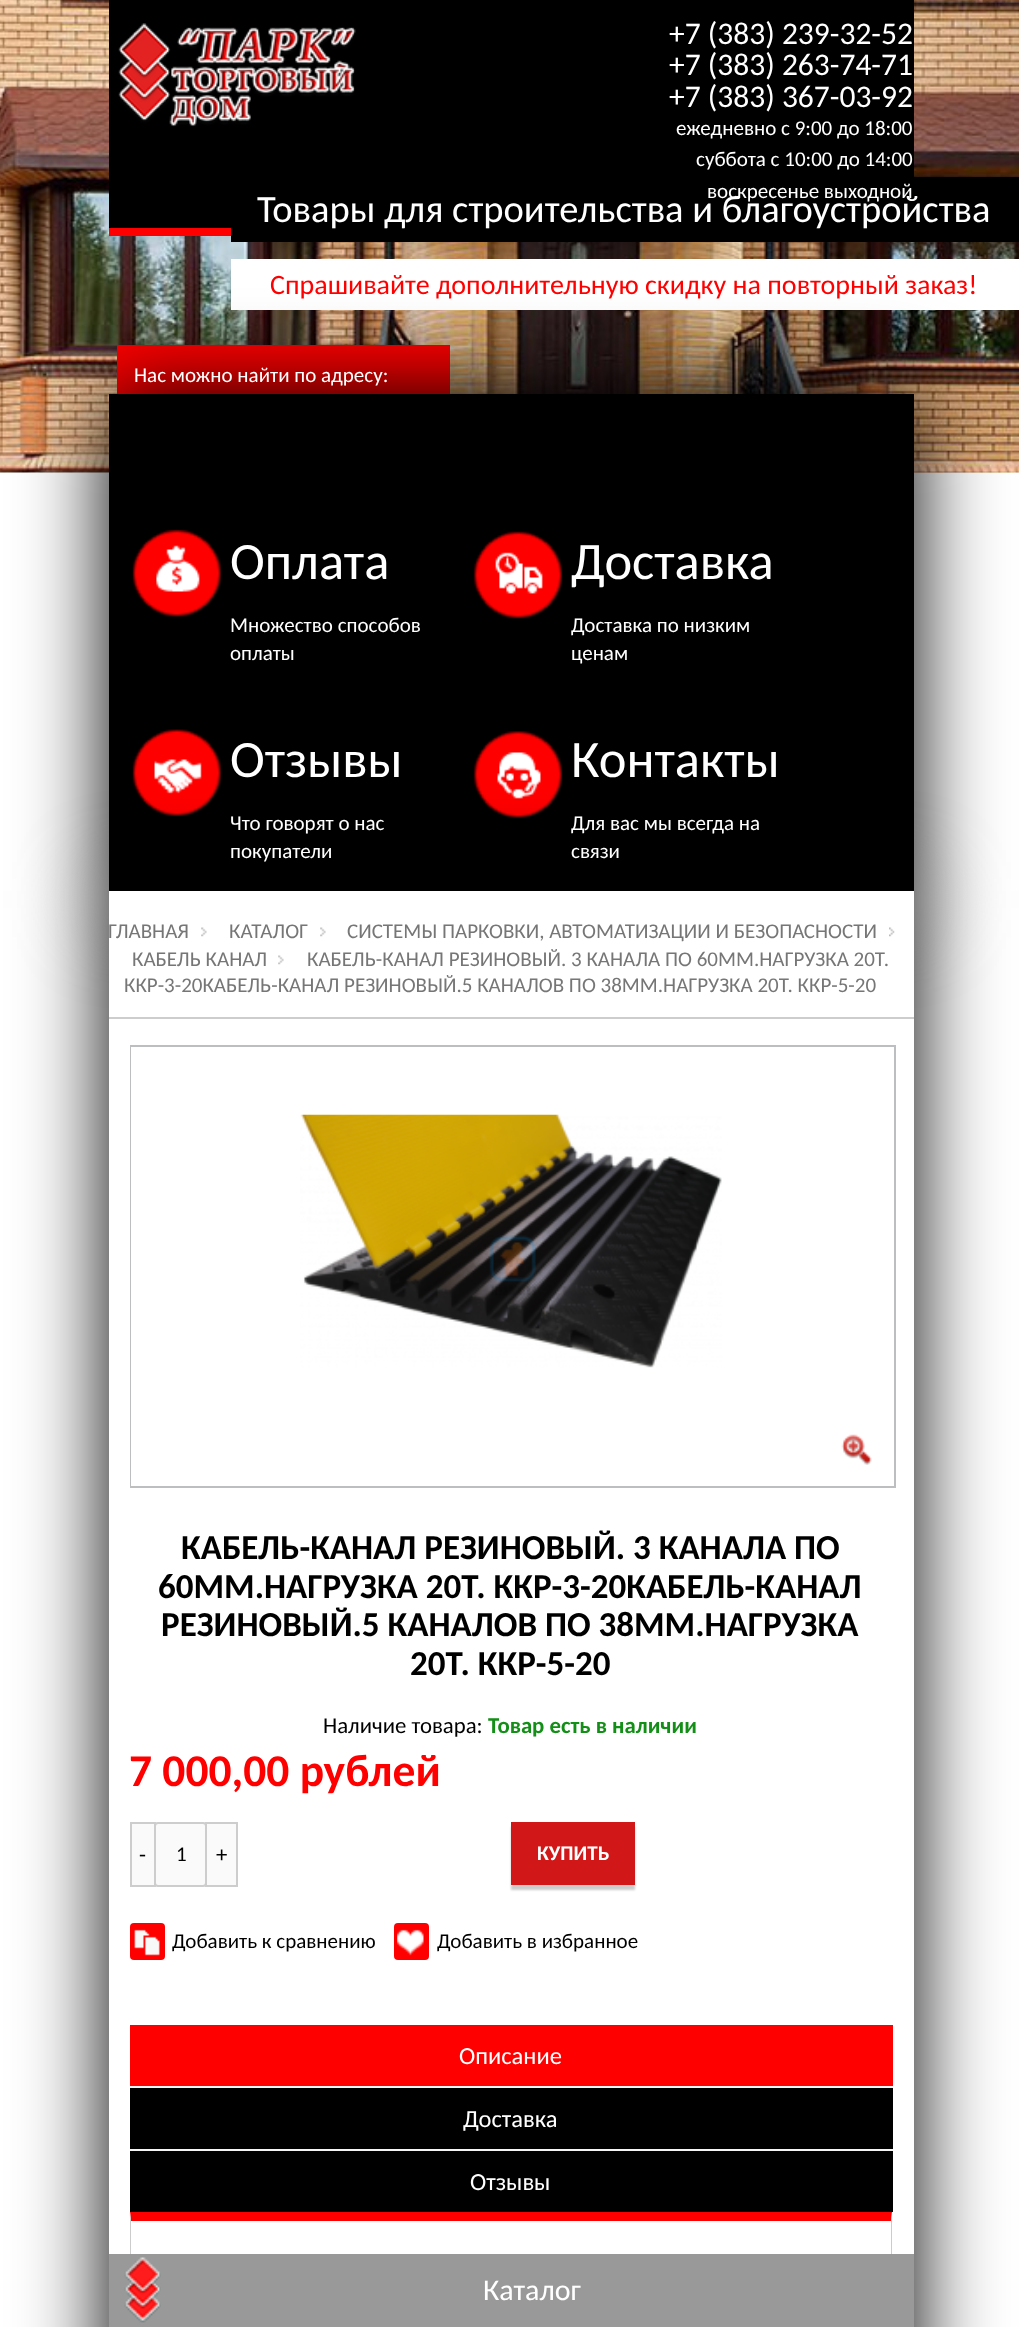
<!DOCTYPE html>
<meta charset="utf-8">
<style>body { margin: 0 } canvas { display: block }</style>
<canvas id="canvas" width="1019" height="2327"></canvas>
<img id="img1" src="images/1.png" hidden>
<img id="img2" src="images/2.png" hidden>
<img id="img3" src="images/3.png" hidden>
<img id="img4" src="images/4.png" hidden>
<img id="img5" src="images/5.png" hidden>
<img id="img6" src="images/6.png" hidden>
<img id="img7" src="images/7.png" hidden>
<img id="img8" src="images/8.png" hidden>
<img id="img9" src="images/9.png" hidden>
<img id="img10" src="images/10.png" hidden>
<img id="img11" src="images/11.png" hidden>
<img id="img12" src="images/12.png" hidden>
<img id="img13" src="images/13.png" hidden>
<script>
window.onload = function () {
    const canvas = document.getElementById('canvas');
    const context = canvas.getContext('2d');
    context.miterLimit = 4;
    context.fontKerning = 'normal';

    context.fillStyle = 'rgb(255, 255, 255)';
    context.fillRect(0, 0, 1019, 2327);
    context.drawImage(document.getElementById('img1'), 0, 0, 1019, 473);
    context.fillStyle = 'rgb(0, 0, 0)';
    context.fillRect(109, 0, 805, 228);
    context.fillStyle = 'rgb(255, 0, 0)';
    context.fillRect(109, 228, 122, 8);
    context.drawImage(document.getElementById('img2'), 118, 23, 238, 104);
    context.fillStyle = 'rgb(0, 0, 0)';
    context.fillRect(231, 177, 788, 65);
    context.fillStyle = 'rgb(255, 255, 255)';
    context.fillRect(231, 259, 788, 51);
    context.fillStyle = 'rgb(255, 0, 0)';
    context.fillRect(117, 345, 333, 49);
    context.fillStyle = 'rgb(0, 0, 0)';
    context.filter = 'blur(44px)';
    context.beginPath();
    context.rect(109, 394, 805, 514);
    context.fill();
    context.filter = 'none';
    context.fillRect(109, 394, 805, 497);
    context.drawImage(document.getElementById('img3'), 132, 530, 89, 87);
    context.drawImage(document.getElementById('img4'), 474, 531, 89, 88);
    context.drawImage(document.getElementById('img5'), 132, 729, 89, 87);
    context.drawImage(document.getElementById('img6'), 474, 731, 89, 87);
    context.filter = 'blur(44px)';
    context.beginPath();
    context.rect(109, 891, 805, 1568);
    context.fill();
    context.filter = 'none';
    context.fillStyle = 'rgb(255, 255, 255)';
    context.fillRect(109, 891, 805, 1363);
    context.fillStyle = 'rgb(205, 205, 205)';
    context.fillRect(109, 1017, 805, 2);
    context.drawImage(document.getElementById('img7'), 201, 927, 6, 10);
    context.drawImage(document.getElementById('img7'), 320, 927, 6, 10);
    context.drawImage(document.getElementById('img8'), 889, 927, 6, 10);
    context.drawImage(document.getElementById('img7'), 278, 955, 6, 10);
    context.strokeStyle = 'rgb(188, 190, 192)';
    context.lineWidth = 2;
    context.strokeRect(131, 1046, 764, 441);
    context.fillStyle = 'rgb(255, 255, 255)';
    context.fillRect(131, 1047, 1, 439);
    context.drawImage(document.getElementById('img9'), 300, 1114, 422, 254);
    context.drawImage(document.getElementById('img10'), 841, 1434, 31, 31);
    context.fillStyle = 'rgb(250, 250, 250)';
    context.beginPath();
    context.rect(131, 1823, 24, 63);
    context.fill();
    context.strokeStyle = 'rgb(205, 205, 205)';
    context.stroke();
    context.beginPath();
    context.roundRect(155, 1823, 51, 63, 3);
    context.fill();
    context.stroke();
    context.beginPath();
    context.rect(206, 1823, 31, 63);
    context.fill();
    context.stroke();
    context.fillStyle = 'rgba(0, 0, 0, 0.2)';
    context.filter = 'blur(1px)';
    context.beginPath();
    context.rect(511, 1827, 124, 63);
    context.fill();
    context.filter = 'none';
    context.fillStyle = 'rgb(209, 23, 23)';
    context.fillRect(511, 1822, 124, 63);
    context.fillStyle = 'rgb(255, 0, 0)';
    context.beginPath();
    context.roundRect(130, 1923, 35, 37, 4);
    context.fill();
    context.drawImage(document.getElementById('img11'), 134, 1929, 26, 27);
    context.beginPath();
    context.roundRect(394, 1923, 35, 37, 4);
    context.fill();
    context.drawImage(document.getElementById('img12'), 397, 1929, 27, 27);
    context.fillStyle = 'rgb(245, 245, 245)';
    context.fillRect(130, 2086, 763, 65);
    context.fillStyle = 'rgb(255, 0, 0)';
    context.fillRect(130, 2025, 763, 61);
    context.fillStyle = 'rgb(0, 0, 0)';
    context.fillRect(130, 2088, 763, 61);
    context.fillRect(130, 2151, 763, 61);
    context.fillStyle = 'rgb(255, 0, 0)';
    context.beginPath();
    context.moveTo(130, 2212);
    context.lineTo(892, 2212);
    context.lineTo(891, 2221);
    context.lineTo(131, 2221);
    context.closePath();
    context.fill();
    context.fillStyle = 'rgb(204, 204, 204)';
    context.beginPath();
    context.moveTo(892, 2212);
    context.lineTo(892, 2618);
    context.lineTo(891, 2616);
    context.lineTo(891, 2221);
    context.closePath();
    context.fill();
    context.beginPath();
    context.moveTo(130, 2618);
    context.lineTo(130, 2212);
    context.lineTo(131, 2221);
    context.lineTo(131, 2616);
    context.closePath();
    context.fill();
    context.fillStyle = 'rgb(153, 153, 153)';
    context.fillRect(109, 2254, 805, 73);
    context.drawImage(document.getElementById('img13'), 124, 2257, 37, 66);
    context.font = '31.5px Carlito';
    context.fillStyle = 'rgb(255, 255, 255)';
    context.fillText('+7 (383) 239-32-52', 669, 44);
    context.fillText('+7 (383) 263-74-71', 669, 75);
    context.fillText('+7 (383) 367-03-92', 669, 107);
    context.font = '21px Carlito';
    context.fillText('ежедневно с 9:00 до 18:00', 676, 135);
    context.fillText('суббота с 10:00 до 14:00', 696, 166);
    context.fillText('воскресенье выходной', 707, 198);
    context.font = '38.5px Carlito';
    context.fillText('Товары для строительства и благоустройства', 257, 222);
    context.font = '28px Carlito';
    context.fillStyle = 'rgb(255, 0, 0)';
    context.fillText('Спрашивайте дополнительную скидку на повторный заказ!', 270, 294);
    context.font = '21px Carlito';
    context.fillStyle = 'rgb(255, 255, 255)';
    context.fillText('Нас можно найти по адресу:', 134, 382);
    context.font = '52.5px Carlito';
    context.fillText('Оплата', 230, 579);
    context.font = '21px Carlito';
    context.fillText('Множество способов', 230, 632);
    context.fillText('оплаты', 230, 660);
    context.font = '52.5px Carlito';
    context.fillText('Доставка', 571, 579);
    context.font = '21px Carlito';
    context.fillText('Доставка по низким', 571, 632);
    context.fillText('ценам', 571, 660);
    context.font = '52.5px Carlito';
    context.fillText('Отзывы', 230, 777);
    context.font = '21px Carlito';
    context.fillText('Что говорят о нас', 230, 830);
    context.fillText('покупатели', 230, 858);
    context.font = '52.5px Carlito';
    context.fillText('Контакты', 571, 777);
    context.font = '21px Carlito';
    context.fillText('Для вас мы всегда на', 571, 830);
    context.fillText('связи', 571, 858);
    context.fillStyle = 'rgb(118, 118, 118)';
    context.fillText('ГЛАВНАЯ', 108, 938);
    context.fillText('КАТАЛОГ', 229, 938);
    context.fillText('СИСТЕМЫ ПАРКОВКИ, АВТОМАТИЗАЦИИ И БЕЗОПАСНОСТИ', 347, 938);
    context.fillText('КАБЕЛЬ КАНАЛ', 132, 966);
    context.fillText('КАБЕЛЬ-КАНАЛ РЕЗИНОВЫЙ. 3 КАНАЛА ПО 60ММ.НАГРУЗКА 20Т.', 307, 966);
    context.fillText('ККР-3-20КАБЕЛЬ-КАНАЛ РЕЗИНОВЫЙ.5 КАНАЛОВ ПО 38ММ.НАГРУЗКА 20Т. ККР-5-20', 124, 992);
    context.font = 'bold 35px Carlito';
    context.fillStyle = 'rgb(0, 0, 0)';
    context.fillText('КАБЕЛЬ-КАНАЛ РЕЗИНОВЫЙ. 3 КАНАЛА ПО', 181, 1559);
    context.fillText('60ММ.НАГРУЗКА 20Т. ККР-3-20КАБЕЛЬ-КАНАЛ', 158, 1598);
    context.fillText('РЕЗИНОВЫЙ.5 КАНАЛОВ ПО 38ММ.НАГРУЗКА', 161, 1636);
    context.fillText('20Т. ККР-5-20', 410, 1675);
    context.font = '22.75px Carlito';
    context.fillText('Наличие товара:', 323, 1733);
    context.font = 'bold 22.75px Carlito';
    context.fillStyle = 'rgb(19, 143, 23)';
    context.fillText('Товар есть в наличии', 488, 1733);
    context.font = 'bold 45.5px Carlito';
    context.fillStyle = 'rgb(255, 0, 0)';
    context.fillText('7 000,00 рублей', 129, 1786);
    context.font = '22.75px Carlito';
    context.fillStyle = 'rgb(0, 0, 0)';
    context.fillText('-', 139, 1862);
    context.font = '21px Carlito';
    context.fillText('1', 176, 1861);
    context.font = '22.75px Carlito';
    context.fillText('+', 216, 1862);
    context.font = 'bold 21px Carlito';
    context.fillStyle = 'rgb(255, 255, 255)';
    context.fillText('КУПИТЬ', 537, 1860);
    context.font = '21px Carlito';
    context.fillStyle = 'rgb(0, 0, 0)';
    context.fillText('Добавить к сравнению', 172, 1948);
    context.fillText('Добавить в избранное', 437, 1948);
    context.font = '24.5px Carlito';
    context.fillStyle = 'rgb(255, 255, 255)';
    context.fillText('Описание', 459, 2064);
    context.fillText('Доставка', 463, 2127);
    context.fillText('Отзывы', 470, 2190);
    context.font = '30px Carlito';
    context.fillText('Каталог', 483, 2300);
};
</script>
